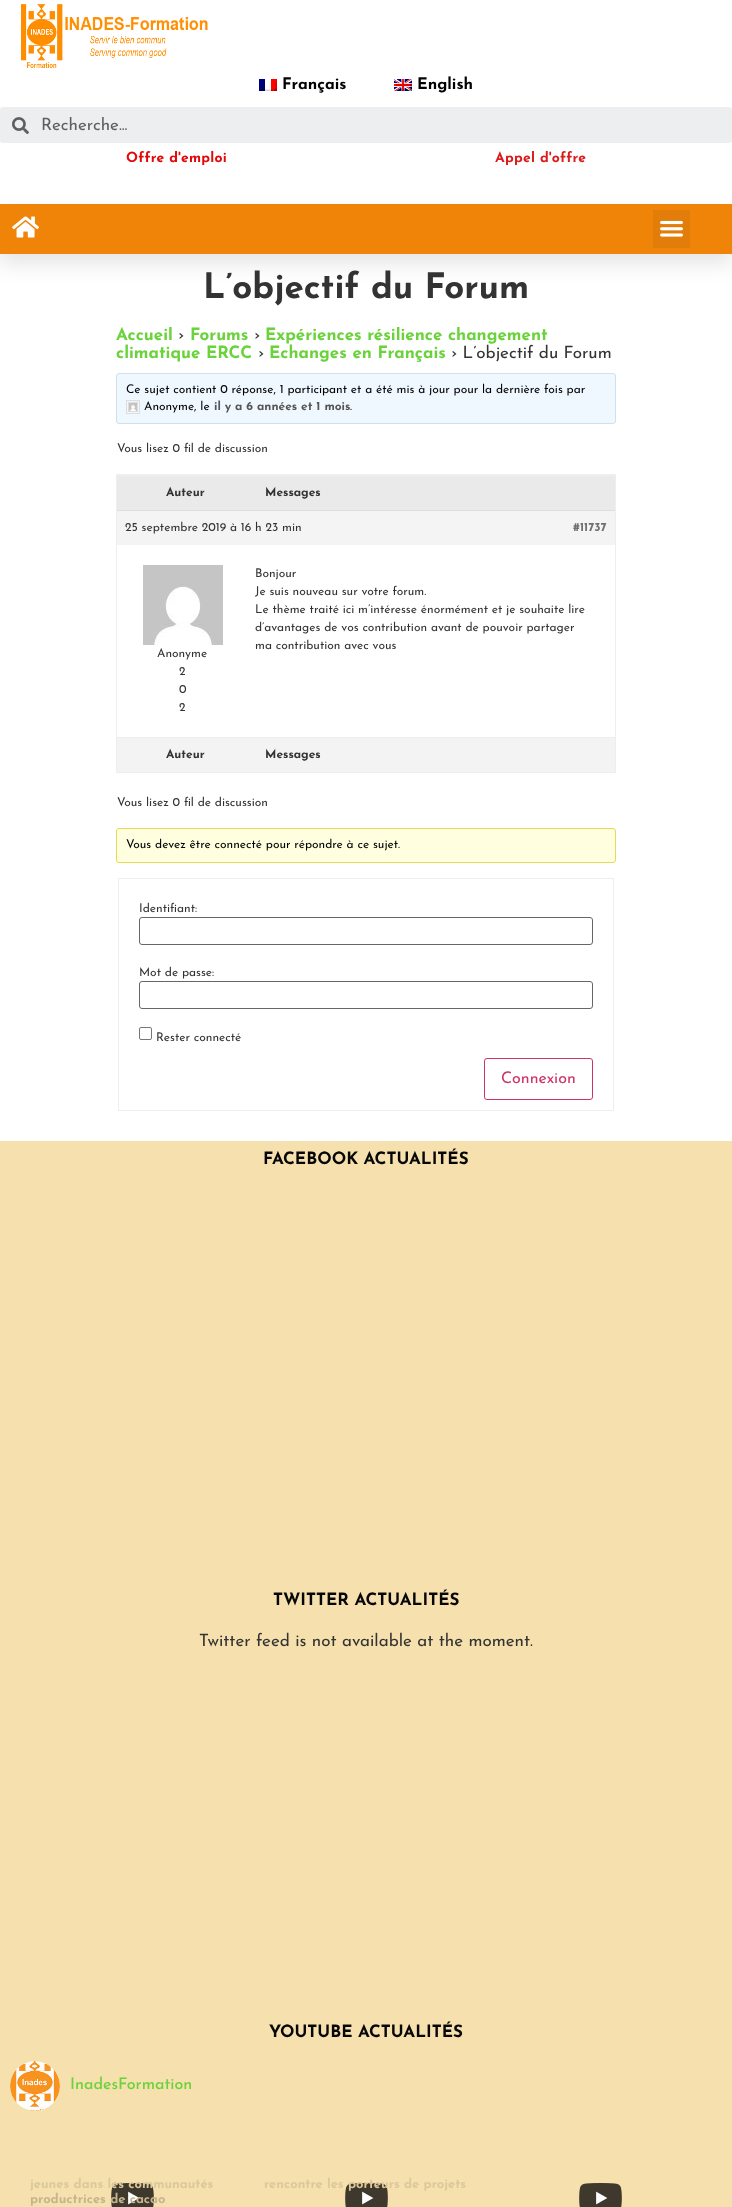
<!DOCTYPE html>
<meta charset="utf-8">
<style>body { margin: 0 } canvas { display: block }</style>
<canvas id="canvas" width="732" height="2207"></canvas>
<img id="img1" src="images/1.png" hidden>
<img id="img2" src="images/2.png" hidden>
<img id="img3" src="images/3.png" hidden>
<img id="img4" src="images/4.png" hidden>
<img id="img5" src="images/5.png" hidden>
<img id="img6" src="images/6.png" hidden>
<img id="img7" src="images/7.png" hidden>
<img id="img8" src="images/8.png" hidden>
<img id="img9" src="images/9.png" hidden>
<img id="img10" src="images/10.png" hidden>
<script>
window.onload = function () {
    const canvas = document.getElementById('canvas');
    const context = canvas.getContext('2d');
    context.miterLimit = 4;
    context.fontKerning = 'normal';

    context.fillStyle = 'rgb(255, 255, 255)';
    context.fillRect(0, 0, 732, 2207);
    context.drawImage(document.getElementById('img1'), 21, 4, 187, 64);
    context.drawImage(document.getElementById('img2'), 259, 79, 18, 12);
    context.drawImage(document.getElementById('img3'), 394, 79, 18, 12);
    context.fillStyle = 'rgb(236, 238, 239)';
    context.beginPath();
    context.roundRect(0, 107, 732, 36, 3);
    context.fill();
    context.drawImage(document.getElementById('img4'), 12, 117, 17, 17);
    context.fillStyle = 'rgba(0, 0, 0, 0.1)';
    context.filter = 'blur(10px)';
    context.beginPath();
    context.rect(0, 214, 732, 50);
    context.fill();
    context.filter = 'none';
    context.fillStyle = 'rgb(239, 132, 9)';
    context.fillRect(0, 204, 732, 50);
    context.drawImage(document.getElementById('img5'), 12, 216, 27, 22);
    context.fillStyle = 'rgb(227, 125, 9)';
    context.fillRect(653, 210, 37, 38);
    context.drawImage(document.getElementById('img6'), 660, 220, 23, 17);
    context.fillStyle = 'rgb(240, 248, 255)';
    context.beginPath();
    context.roundRect(116.5, 373.5, 499, 50, 2.5);
    context.fill();
    context.strokeStyle = 'rgb(206, 225, 239)';
    context.stroke();
    context.strokeStyle = 'rgb(221, 221, 221)';
    context.strokeRect(126.5, 400.5, 13, 13);
    context.strokeRect(128.5, 402.5, 9, 9);
    context.drawImage(document.getElementById('img7'), 129, 403, 8, 8);
    context.strokeStyle = 'rgb(238, 238, 238)';
    context.strokeRect(116.5, 474.5, 499, 298);
    context.fillStyle = 'rgb(234, 234, 234)';
    context.fillRect(117, 476, 498, 34);
    context.fillStyle = 'rgb(238, 238, 238)';
    context.fillRect(117, 475, 498, 1);
    context.fillStyle = 'rgb(244, 244, 244)';
    context.fillRect(117, 511, 498, 34);
    context.fillStyle = 'rgb(221, 221, 221)';
    context.fillRect(117, 510, 498, 1);
    context.drawImage(document.getElementById('img8'), 143, 565, 80, 80);
    context.fillStyle = 'rgb(243, 243, 243)';
    context.fillRect(117, 738, 498, 34);
    context.fillStyle = 'rgb(238, 238, 238)';
    context.fillRect(117, 737, 498, 1);
    context.fillStyle = 'rgb(255, 255, 224)';
    context.beginPath();
    context.roundRect(116.5, 828.5, 499, 34, 2.5);
    context.fill();
    context.strokeStyle = 'rgb(230, 219, 85)';
    context.stroke();
    context.strokeStyle = 'rgb(238, 238, 238)';
    context.strokeRect(118.5, 878.5, 495, 232);
    context.beginPath();
    context.roundRect(139.5, 917.5, 453, 27, 2.5);
    context.strokeStyle = 'rgb(102, 102, 102)';
    context.stroke();
    context.beginPath();
    context.roundRect(139.5, 981.5, 453, 27, 2.5);
    context.stroke();
    context.beginPath();
    context.roundRect(139.5, 1027.5, 12, 12, 1.5);
    context.strokeStyle = 'rgb(118, 118, 118)';
    context.stroke();
    context.beginPath();
    context.roundRect(484.5, 1058.5, 108, 41, 2.5);
    context.strokeStyle = 'rgb(204, 51, 102)';
    context.stroke();
    context.fillStyle = 'rgb(246, 225, 174)';
    context.fillRect(0, 1141, 732, 1066);
    context.drawImage(document.getElementById('img9'), 10, 2061, 50, 50);
    context.fillStyle = 'rgb(255, 255, 255)';
    context.beginPath();
    context.moveTo(128, 2205);
    context.lineTo(128, 2191);
    context.lineTo(140, 2198);
    context.closePath();
    context.fill();
    context.drawImage(document.getElementById('img10'), 111, 2183, 43, 24);
    context.beginPath();
    context.moveTo(362, 2205);
    context.lineTo(362, 2191);
    context.lineTo(374, 2198);
    context.closePath();
    context.fill();
    context.drawImage(document.getElementById('img10'), 345, 2183, 43, 24);
    context.beginPath();
    context.moveTo(596, 2205);
    context.lineTo(596, 2191);
    context.lineTo(608, 2198);
    context.closePath();
    context.fill();
    context.drawImage(document.getElementById('img10'), 579, 2183, 43, 24);
    context.font = 'bold 16px Josefin Sans';
    context.fillStyle = 'rgb(0, 0, 0)';
    context.fillText('Français', 282, 89);
    context.fillText('English', 417, 89);
    context.save();
    context.beginPath();
    context.rect(41, 117, 663, 17);
    context.clip();
    context.font = '17px Josefin Sans';
    context.fillStyle = 'rgb(94, 95, 96)';
    context.fillText('Recherche...', 41, 130);
    context.restore();
    context.letterSpacing = '0.25px';
    context.font = 'bold 14px Josefin Sans';
    context.fillStyle = 'rgb(227, 8, 8)';
    context.fillText('Offre d\'emploi', 126, 162);
    context.fillStyle = 'rgb(220, 27, 27)';
    context.fillText('Appel d\'offre', 495, 162);
    context.letterSpacing = '0px';
    context.font = 'bold 35px Josefin Sans';
    context.fillStyle = 'rgb(51, 51, 51)';
    context.fillText('L’objectif du Forum', 203, 298);
    context.save();
    context.beginPath();
    context.rect(116, 327, 500, 794);
    context.clip();
    context.font = 'bold 17px Josefin Sans';
    context.fillStyle = 'rgb(106, 210, 58)';
    context.fillText('Accueil', 116, 340);
    context.restore();
    context.font = '17px Josefin Sans';
    context.fillText('›', 178, 340);
    context.font = 'bold 17px Josefin Sans';
    context.fillStyle = 'rgb(106, 210, 58)';
    context.fillText('Forums', 190, 340);
    context.font = '17px Josefin Sans';
    context.fillStyle = 'rgb(51, 51, 51)';
    context.fillText('›', 254, 340);
    context.save();
    context.beginPath();
    context.rect(116, 327, 500, 794);
    context.clip();
    context.font = 'bold 17px Josefin Sans';
    context.fillStyle = 'rgb(106, 210, 58)';
    context.fillText('Expériences résilience changement', 265, 340);
    context.restore();
    context.font = 'bold 17px Josefin Sans';
    context.fillStyle = 'rgb(106, 210, 58)';
    context.fillText('climatique ERCC', 116, 358);
    context.font = '17px Josefin Sans';
    context.fillStyle = 'rgb(51, 51, 51)';
    context.fillText('›', 258, 358);
    context.font = 'bold 17px Josefin Sans';
    context.fillStyle = 'rgb(106, 210, 58)';
    context.fillText('Echanges en Français', 269, 358);
    context.font = '17px Josefin Sans';
    context.fillStyle = 'rgb(51, 51, 51)';
    context.fillText('› L’objectif du Forum', 451, 358);
    context.font = '12px Josefin Sans';
    context.fillStyle = 'rgb(0, 0, 0)';
    context.fillText('Ce sujet contient 0 réponse, 1 participant et a été mis à jour pour la dernière fois par', 126, 393);
    context.fillText('Anonyme, le', 144, 410);
    context.font = 'bold 12px Josefin Sans';
    context.fillStyle = 'rgb(85, 85, 85)';
    context.fillText('il y a 6 années et 1 mois', 214, 410);
    context.font = '12px Josefin Sans';
    context.fillStyle = 'rgb(0, 0, 0)';
    context.fillText('.', 350, 410);
    context.fillStyle = 'rgb(51, 51, 51)';
    context.fillText('Vous lisez 0 fil de discussion', 117, 452);
    context.font = 'bold 12px Josefin Sans';
    context.fillText('Auteur', 166, 496);
    context.fillText('Messages', 265, 496);
    context.font = '12px Josefin Sans';
    context.fillText('25 septembre 2019 à 16 h 23 min', 125, 531);
    context.font = 'bold 12px Josefin Sans';
    context.fillStyle = 'rgb(112, 112, 112)';
    context.fillText('#11737', 573, 531);
    context.font = '12px Josefin Sans';
    context.fillStyle = 'rgb(51, 51, 51)';
    context.fillText('Bonjour', 255, 577);
    context.fillText('Je suis nouveau sur votre forum.', 255, 595);
    context.fillText('Le thème traité ici m’intéresse énormément et je souhaite lire', 255, 613);
    context.fillText('d’avantages de vos contribution avant de pouvoir partager', 255, 631);
    context.fillText('ma contribution avec vous', 255, 649);
    context.fillText('Anonyme', 157, 657);
    context.fillText('2', 179, 675);
    context.fillText('0', 179, 693);
    context.fillText('2', 179, 711);
    context.font = 'bold 12px Josefin Sans';
    context.fillText('Auteur', 166, 758);
    context.fillText('Messages', 265, 758);
    context.font = '12px Josefin Sans';
    context.fillText('Vous lisez 0 fil de discussion', 117, 806);
    context.fillStyle = 'rgb(0, 0, 0)';
    context.fillText('Vous devez être connecté pour répondre à ce sujet.', 126, 848);
    context.fillStyle = 'rgb(51, 51, 51)';
    context.fillText('Identifiant:', 139, 912);
    context.fillText('Mot de passe:', 139, 976);
    context.fillText('Rester connecté', 156, 1041);
    context.font = '16px Josefin Sans';
    context.fillStyle = 'rgb(204, 51, 102)';
    context.fillText('Connexion', 501, 1083);
    context.font = 'bold 17px Josefin Sans';
    context.fillStyle = 'rgb(7, 7, 7)';
    context.fillText('FACEBOOK ACTUALITÉS', 263, 1164);
    context.fillText('TWITTER ACTUALITÉS', 273, 1605);
    context.font = '17px Josefin Sans';
    context.fillStyle = 'rgb(51, 51, 51)';
    context.fillText('Twitter feed is not available at the moment.', 199, 1646);
    context.font = 'bold 17px Josefin Sans';
    context.fillStyle = 'rgb(7, 7, 7)';
    context.fillText('YOUTUBE ACTUALITÉS', 269, 2037);
    context.font = '500 16px Josefin Sans';
    context.fillStyle = 'rgb(106, 210, 58)';
    context.fillText('InadesFormation', 70, 2089);
    context.font = 'bold 13px Josefin Sans';
    context.fillStyle = 'rgb(219, 200, 155)';
    context.fillText('jeunes dans les communautés', 30, 2188);
    context.fillStyle = 'rgb(197, 181, 142)';
    context.fillText('productrices de cacao', 30, 2203);
    context.fillStyle = 'rgb(219, 200, 155)';
    context.fillText('rencontre les porteurs de projets', 264, 2188);
};
</script>
